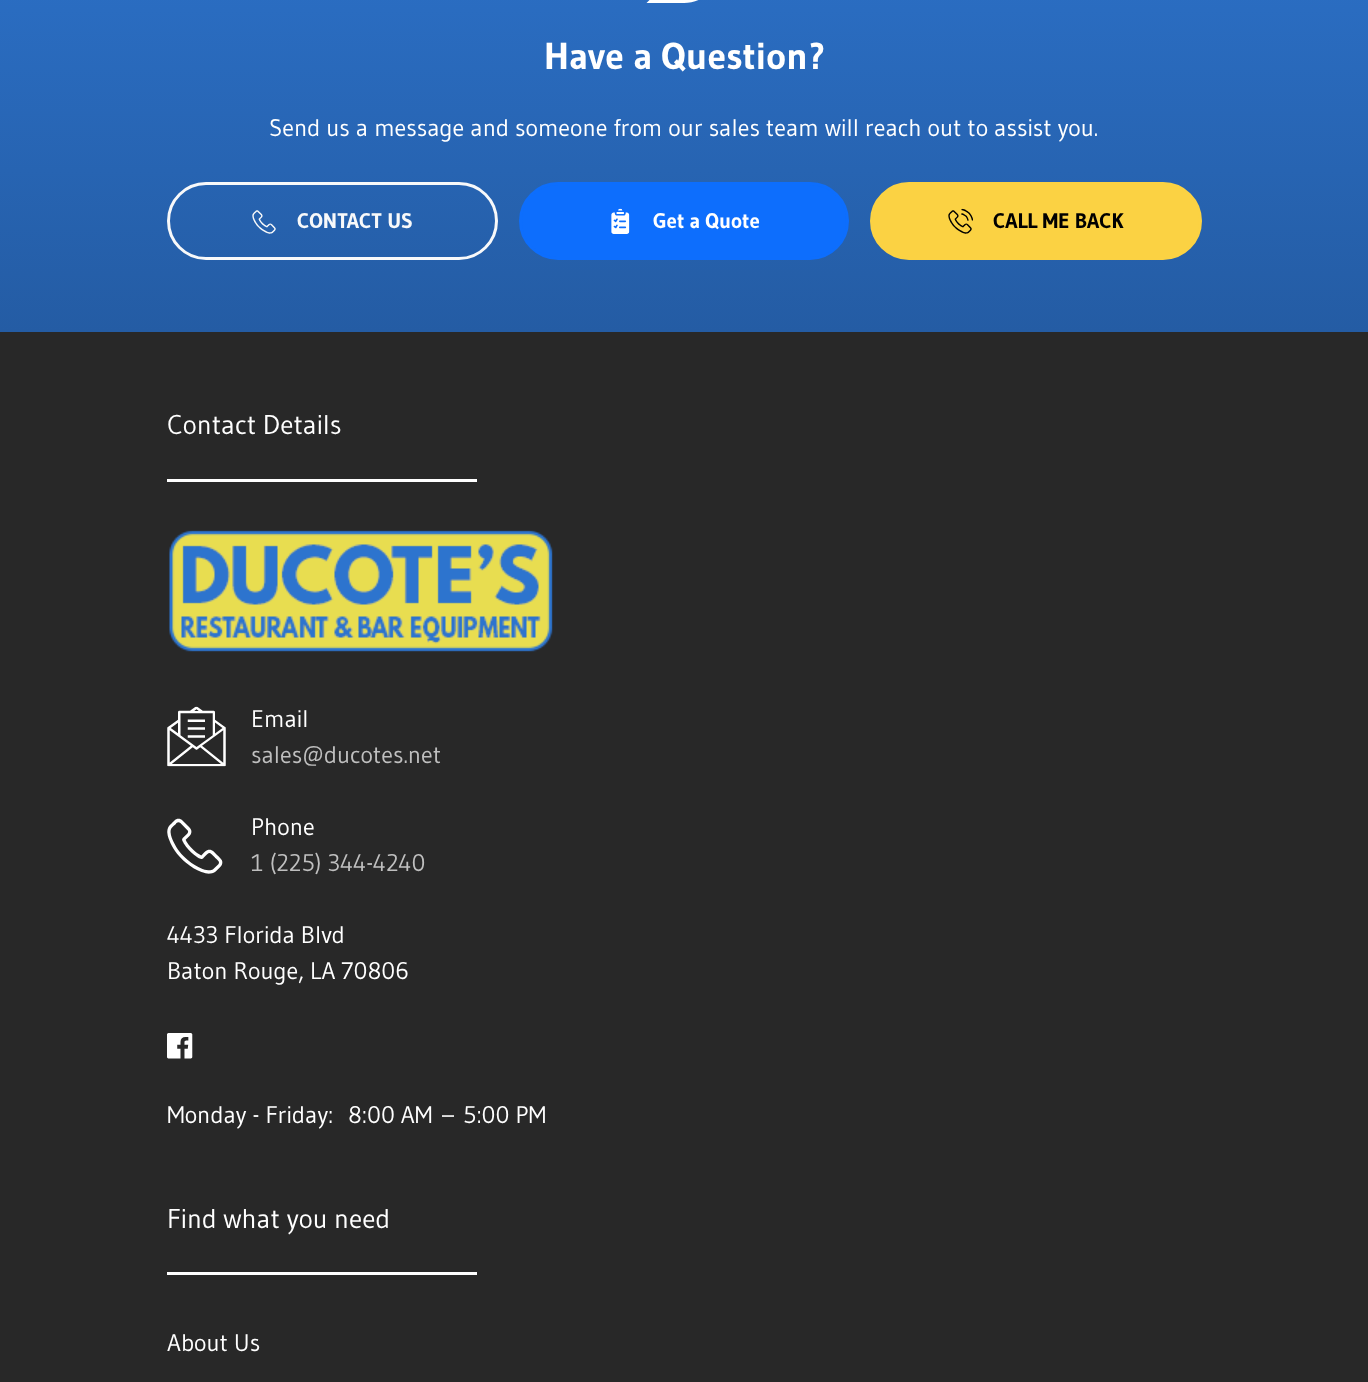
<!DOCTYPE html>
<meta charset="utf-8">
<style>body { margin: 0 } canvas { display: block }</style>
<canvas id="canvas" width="1368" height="1382"></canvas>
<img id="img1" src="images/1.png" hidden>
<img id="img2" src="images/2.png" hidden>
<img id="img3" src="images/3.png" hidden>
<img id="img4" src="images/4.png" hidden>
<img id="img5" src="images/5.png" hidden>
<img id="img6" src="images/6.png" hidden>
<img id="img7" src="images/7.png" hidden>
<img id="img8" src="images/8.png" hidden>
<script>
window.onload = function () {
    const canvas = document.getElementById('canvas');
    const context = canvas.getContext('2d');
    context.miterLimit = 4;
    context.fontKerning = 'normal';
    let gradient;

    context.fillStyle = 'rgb(255, 255, 255)';
    context.fillRect(0, 0, 1368, 1382);
    gradient = context.createLinearGradient(684, -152, 684, 332);
    gradient.addColorStop(0, 'rgb(45, 116, 206)');
    gradient.addColorStop(1, 'rgb(36, 92, 164)');
    context.fillStyle = gradient;
    context.fillRect(0, 0, 1368, 332);
    context.drawImage(document.getElementById('img1'), 646, 0, 53, 3);
    context.beginPath();
    context.roundRect(168.5, 183.5, 328, 75, 37.5);
    context.strokeStyle = 'rgb(248, 249, 250)';
    context.lineWidth = 3;
    context.stroke();
    context.drawImage(document.getElementById('img2'), 252, 210, 24, 24);
    context.fillStyle = 'rgb(13, 110, 253)';
    context.beginPath();
    context.roundRect(520.5, 183.5, 327, 75, 37.5);
    context.fill();
    context.strokeStyle = 'rgb(13, 110, 253)';
    context.stroke();
    context.drawImage(document.getElementById('img3'), 611, 208, 19, 26);
    context.fillStyle = 'rgb(251, 210, 67)';
    context.beginPath();
    context.roundRect(871.5, 183.5, 329, 75, 37.5);
    context.fill();
    context.strokeStyle = 'rgb(251, 210, 67)';
    context.stroke();
    context.drawImage(document.getElementById('img4'), 948, 208, 25, 26);
    context.fillStyle = 'rgb(40, 40, 40)';
    context.fillRect(0, 332, 1368, 1050);
    context.fillStyle = 'rgb(255, 255, 255)';
    context.fillRect(167, 479, 310, 3);
    context.drawImage(document.getElementById('img5'), 169, 530, 384, 122);
    context.drawImage(document.getElementById('img6'), 167, 706, 59, 61);
    context.drawImage(document.getElementById('img7'), 167, 818, 56, 56);
    context.drawImage(document.getElementById('img8'), 167, 1033, 26, 26);
    context.fillRect(167, 1272, 310, 3);
    context.font = 'bold 37.5px Gudea';
    context.fillText('Have a Question?', 544, 69);
    context.font = '24px Gudea';
    context.fillText('Send us a message and someone from our sales team will reach out to assist you.', 269, 136);
    context.font = 'bold 21px Gudea';
    context.fillStyle = 'rgb(248, 249, 250)';
    context.fillText('CONTACT US', 297, 228);
    context.fillStyle = 'rgb(255, 255, 255)';
    context.fillText('Get a Quote', 653, 228);
    context.fillStyle = 'rgb(0, 0, 0)';
    context.fillText('CALL ME BACK', 993, 228);
    context.font = '27px Gudea';
    context.fillStyle = 'rgb(255, 255, 255)';
    context.fillText('Contact Details', 167, 434);
    context.font = '24px Gudea';
    context.fillText('Email', 251, 727);
    context.fillStyle = 'rgb(191, 191, 191)';
    context.fillText('sales@ducotes.net', 251, 763);
    context.fillStyle = 'rgb(255, 255, 255)';
    context.fillText('Phone', 251, 835);
    context.fillStyle = 'rgb(191, 191, 191)';
    context.fillText('1 (225) 344-4240', 251, 871);
    context.fillStyle = 'rgb(255, 255, 255)';
    context.fillText('4433 Florida Blvd', 167, 943);
    context.fillText('Baton Rouge, LA 70806', 167, 979);
    context.fillText('Monday - Friday:', 167, 1123);
    context.fillText('8:00 AM', 348, 1123);
    context.fillText('–', 442, 1123);
    context.fillText('5:00 PM', 463, 1123);
    context.font = '27px Gudea';
    context.fillText('Find what you need', 167, 1228);
    context.font = '24px Gudea';
    context.fillText('About Us', 167, 1351);
};
</script>
